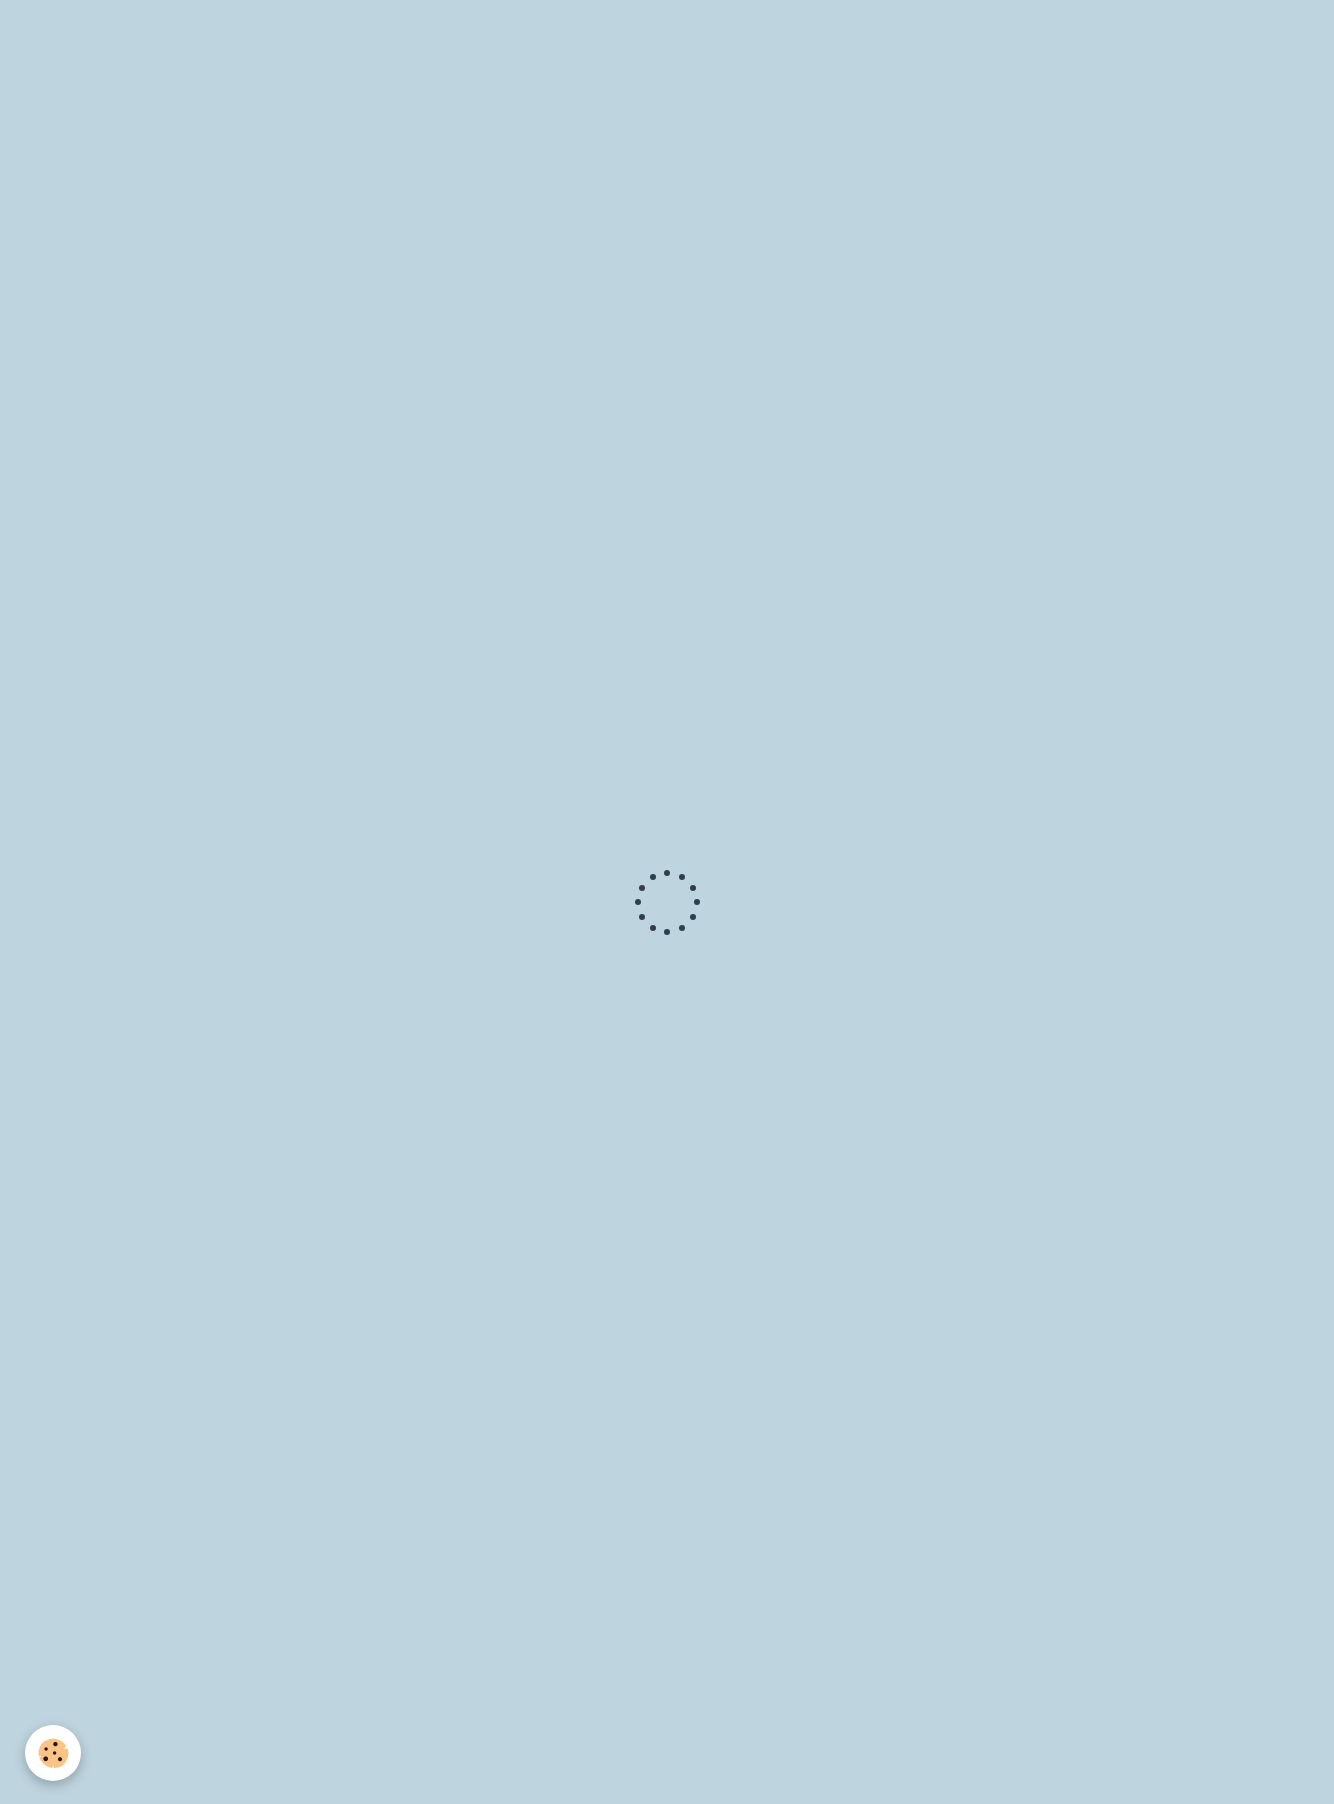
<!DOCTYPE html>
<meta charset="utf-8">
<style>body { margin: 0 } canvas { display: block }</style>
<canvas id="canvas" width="1334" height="1804"></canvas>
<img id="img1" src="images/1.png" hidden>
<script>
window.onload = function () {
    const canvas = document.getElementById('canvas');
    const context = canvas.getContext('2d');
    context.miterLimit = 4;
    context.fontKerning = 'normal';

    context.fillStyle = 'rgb(190, 212, 223)';
    context.fillRect(0, 0, 1334, 1804);
    context.fillStyle = 'rgb(50, 62, 78)';
    context.beginPath();
    context.arc(667, 873, 3, 0, 2 * Math.PI);
    context.fill();
    context.beginPath();
    context.arc(653, 877, 3, 0, 2 * Math.PI);
    context.fill();
    context.beginPath();
    context.arc(682, 877, 3, 0, 2 * Math.PI);
    context.fill();
    context.beginPath();
    context.arc(642, 888, 3, 0, 2 * Math.PI);
    context.fill();
    context.beginPath();
    context.arc(693, 888, 3, 0, 2 * Math.PI);
    context.fill();
    context.beginPath();
    context.arc(638, 902, 3, 0, 2 * Math.PI);
    context.fill();
    context.beginPath();
    context.arc(697, 902, 3, 0, 2 * Math.PI);
    context.fill();
    context.beginPath();
    context.arc(642, 917, 3, 0, 2 * Math.PI);
    context.fill();
    context.beginPath();
    context.arc(693, 917, 3, 0, 2 * Math.PI);
    context.fill();
    context.beginPath();
    context.arc(653, 928, 3, 0, 2 * Math.PI);
    context.fill();
    context.beginPath();
    context.arc(682, 928, 3, 0, 2 * Math.PI);
    context.fill();
    context.beginPath();
    context.arc(667, 932, 3, 0, 2 * Math.PI);
    context.fill();
    context.fillStyle = 'rgba(0, 0, 0, 0.24)';
    context.filter = 'blur(6px)';
    context.beginPath();
    context.roundRect(25, 1729, 56, 56, 28);
    context.fill();
    context.filter = 'none';
    context.fillStyle = 'rgb(255, 255, 255)';
    context.beginPath();
    context.arc(53, 1753, 28, 0, 2 * Math.PI);
    context.fill();
    context.drawImage(document.getElementById('img1'), 38, 1738, 31, 30);
};
</script>
